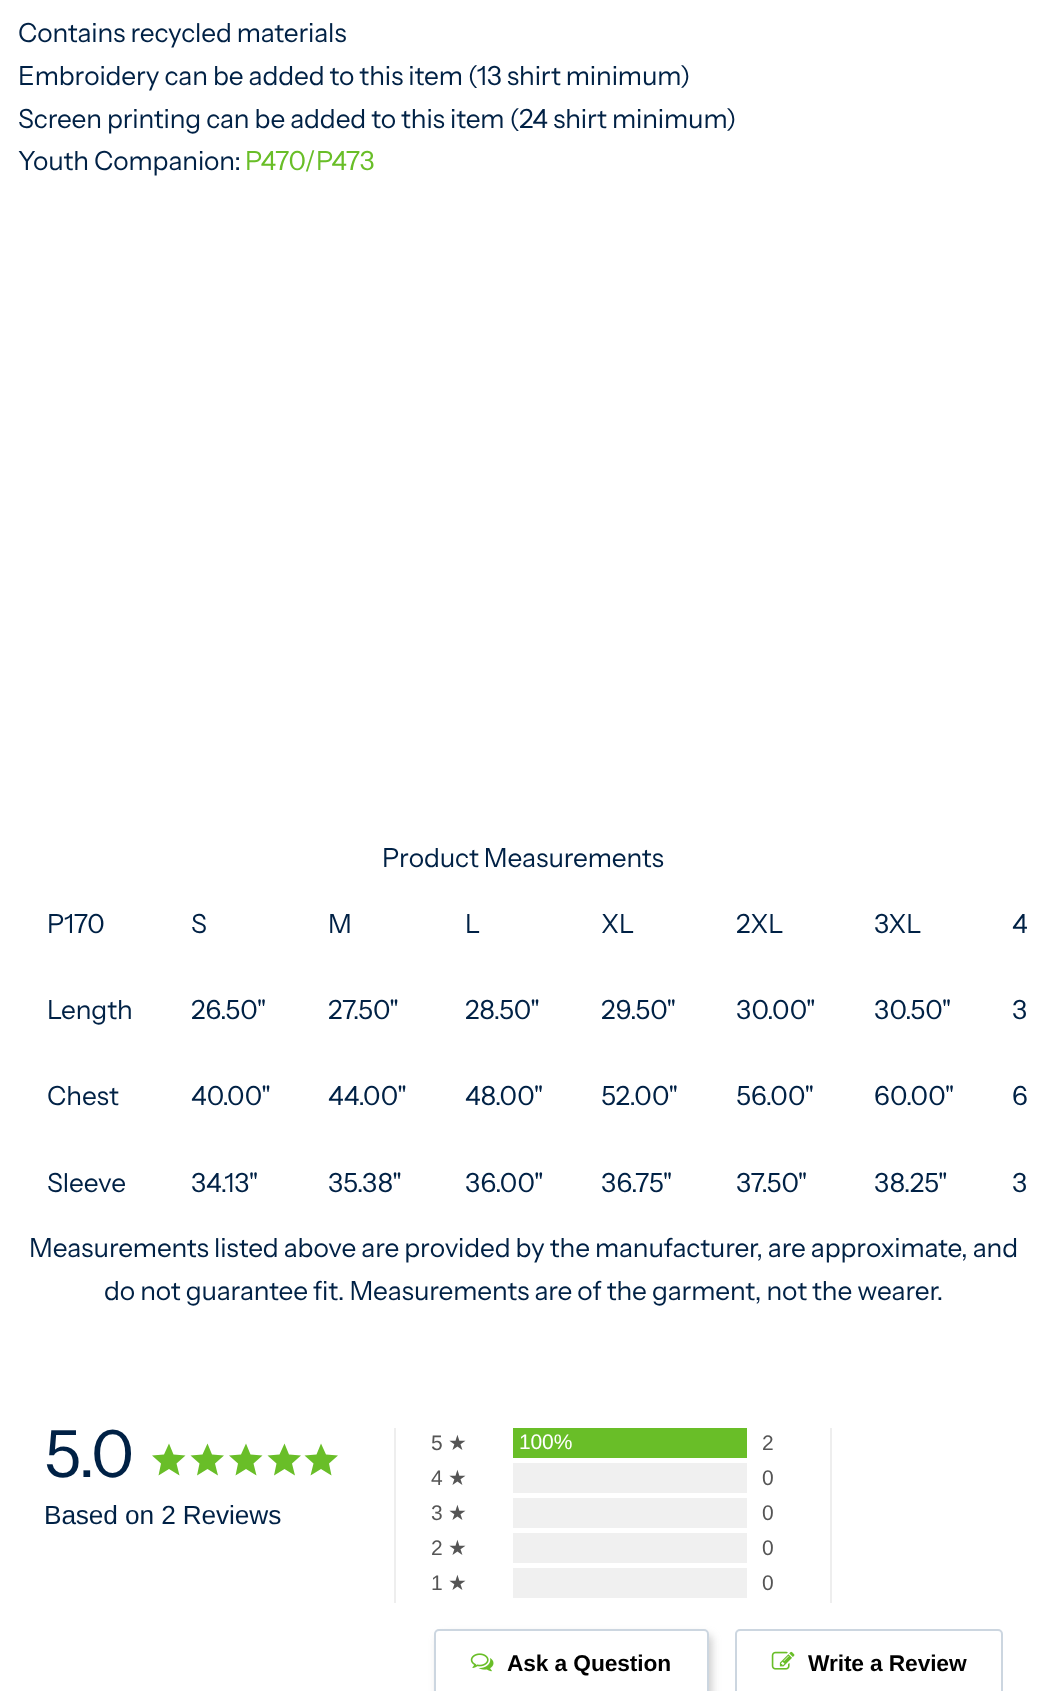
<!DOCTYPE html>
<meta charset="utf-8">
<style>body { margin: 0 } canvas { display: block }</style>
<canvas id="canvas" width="1045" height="1691"></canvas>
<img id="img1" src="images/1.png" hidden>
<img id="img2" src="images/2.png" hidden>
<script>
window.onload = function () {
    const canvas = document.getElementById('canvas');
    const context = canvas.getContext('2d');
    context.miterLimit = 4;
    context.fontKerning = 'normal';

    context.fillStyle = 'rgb(255, 255, 255)';
    context.fillRect(0, 0, 1045, 1691);
    context.fillStyle = 'rgb(105, 190, 40)';
    context.beginPath();
    context.moveTo(169, 1469);
    context.lineTo(158.5, 1475.5);
    context.lineTo(161, 1463.5);
    context.lineTo(152, 1455.5);
    context.lineTo(164, 1454.5);
    context.lineTo(169, 1443.5);
    context.lineTo(173.5, 1454.5);
    context.lineTo(185.5, 1455.5);
    context.lineTo(176.5, 1463.5);
    context.lineTo(179.5, 1475.5);
    context.closePath();
    context.fill();
    context.beginPath();
    context.moveTo(207.5, 1469);
    context.lineTo(197, 1475.5);
    context.lineTo(199.5, 1463.5);
    context.lineTo(190.5, 1455.5);
    context.lineTo(202.5, 1454.5);
    context.lineTo(207.5, 1443.5);
    context.lineTo(212, 1454.5);
    context.lineTo(224, 1455.5);
    context.lineTo(215, 1463.5);
    context.lineTo(218, 1475.5);
    context.closePath();
    context.fill();
    context.beginPath();
    context.moveTo(246, 1469);
    context.lineTo(235.5, 1475.5);
    context.lineTo(238, 1463.5);
    context.lineTo(229, 1455.5);
    context.lineTo(241, 1454.5);
    context.lineTo(246, 1443.5);
    context.lineTo(250.5, 1454.5);
    context.lineTo(262.5, 1455.5);
    context.lineTo(253.5, 1463.5);
    context.lineTo(256.5, 1475.5);
    context.closePath();
    context.fill();
    context.beginPath();
    context.moveTo(284.5, 1469);
    context.lineTo(274, 1475.5);
    context.lineTo(276.5, 1463.5);
    context.lineTo(267.5, 1455.5);
    context.lineTo(279.5, 1454.5);
    context.lineTo(284.5, 1443.5);
    context.lineTo(289, 1454.5);
    context.lineTo(301, 1455.5);
    context.lineTo(292, 1463.5);
    context.lineTo(295, 1475.5);
    context.closePath();
    context.fill();
    context.beginPath();
    context.moveTo(321, 1469);
    context.lineTo(310.5, 1475.5);
    context.lineTo(313.5, 1463.5);
    context.lineTo(304.5, 1455.5);
    context.lineTo(316.5, 1454.5);
    context.lineTo(321, 1443.5);
    context.lineTo(326, 1454.5);
    context.lineTo(338, 1455.5);
    context.lineTo(329, 1463.5);
    context.lineTo(331.5, 1475.5);
    context.closePath();
    context.fill();
    context.fillStyle = 'rgb(238, 238, 238)';
    context.fillRect(830, 1428, 2, 175);
    context.fillRect(394, 1428, 2, 175);
    context.fillStyle = 'rgb(105, 190, 40)';
    context.fillRect(513, 1428, 234, 30);
    context.fillStyle = 'rgb(240, 240, 240)';
    context.fillRect(513, 1463, 234, 30);
    context.fillRect(513, 1498, 234, 30);
    context.fillRect(513, 1533, 234, 30);
    context.fillRect(513, 1568, 234, 30);
    context.save();
    context.beginPath();
    context.moveTo(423, 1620);
    context.lineTo(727, 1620);
    context.lineTo(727, 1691);
    context.lineTo(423, 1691);
    context.closePath();
    context.moveTo(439, 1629);
    context.lineTo(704, 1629);
    context.bezierCurveTo(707, 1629, 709, 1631, 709, 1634);
    context.lineTo(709, 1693);
    context.bezierCurveTo(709, 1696, 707, 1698, 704, 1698);
    context.lineTo(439, 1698);
    context.bezierCurveTo(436, 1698, 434, 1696, 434, 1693);
    context.lineTo(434, 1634);
    context.bezierCurveTo(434, 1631, 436, 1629, 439, 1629);
    context.closePath();
    context.clip('evenodd');
    context.fillStyle = 'rgba(136, 136, 136, 0.42)';
    context.filter = 'blur(4.5px)';
    context.beginPath();
    context.roundRect(438, 1635, 274, 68, 5);
    context.fill();
    context.filter = 'none';
    context.restore();
    context.beginPath();
    context.roundRect(435, 1630, 273, 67, 4);
    context.strokeStyle = 'rgb(204, 214, 224)';
    context.lineWidth = 2;
    context.stroke();
    context.drawImage(document.getElementById('img1'), 470, 1653, 24, 19);
    context.beginPath();
    context.roundRect(736, 1630, 266, 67, 4);
    context.stroke();
    context.drawImage(document.getElementById('img2'), 771, 1651, 24, 19);
    context.letterSpacing = '-0.12px';
    context.font = '26.25px Instrument Sans';
    context.fillStyle = 'rgb(0, 33, 69)';
    context.fillText('Contains recycled materials', 18, 42);
    context.fillText('Embroidery can be added to this item (13 shirt minimum)', 18, 85);
    context.fillText('Screen printing can be added to this item (24 shirt minimum)', 18, 128);
    context.fillText('Youth Companion:', 18, 170);
    context.letterSpacing = '-0.1px';
    context.fillStyle = 'rgb(105, 190, 40)';
    context.fillText('P470/P473', 245, 170);
    context.letterSpacing = '-0.12px';
    context.fillStyle = 'rgb(0, 33, 69)';
    context.fillText('Product Measurements', 382, 867);
    context.fillText('P170', 47, 933);
    context.fillText('S', 191, 933);
    context.fillText('M', 328, 933);
    context.fillText('L', 465, 933);
    context.fillText('XL', 601, 933);
    context.fillText('2XL', 736, 933);
    context.fillText('3XL', 874, 933);
    context.fillText('4', 1012, 933);
    context.fillText('Length', 47, 1019);
    context.fillText('26.50"', 191, 1019);
    context.fillText('27.50"', 328, 1019);
    context.fillText('28.50"', 465, 1019);
    context.fillText('29.50"', 601, 1019);
    context.fillText('30.00"', 736, 1019);
    context.fillText('30.50"', 874, 1019);
    context.fillText('3', 1012, 1019);
    context.fillText('Chest', 47, 1105);
    context.fillText('40.00"', 191, 1105);
    context.fillText('44.00"', 328, 1105);
    context.fillText('48.00"', 465, 1105);
    context.fillText('52.00"', 601, 1105);
    context.fillText('56.00"', 736, 1105);
    context.fillText('60.00"', 874, 1105);
    context.fillText('6', 1012, 1105);
    context.fillText('Sleeve', 47, 1192);
    context.fillText('34.13"', 191, 1192);
    context.fillText('35.38"', 328, 1192);
    context.fillText('36.00"', 465, 1192);
    context.fillText('36.75"', 601, 1192);
    context.fillText('37.50"', 736, 1192);
    context.fillText('38.25"', 874, 1192);
    context.fillText('3', 1012, 1192);
    context.fillText('Measurements listed above are provided by the manufacturer, are approximate, and', 29, 1257);
    context.fillText('do not guarantee fit. Measurements are of the garment, not the wearer.', 104, 1300);
    context.letterSpacing = '0px';
    context.font = '65px Instrument Sans';
    context.fillText('5.0', 44, 1477);
    context.letterSpacing = '-0.12px';
    context.font = '26.25px Liberation Sans';
    context.fillText('Based on 2 Reviews', 44, 1524);
    context.font = '21px Liberation Sans';
    context.fillStyle = 'rgb(85, 85, 85)';
    context.fillText('5', 431, 1450);
    context.font = '21px DejaVu Sans';
    context.fillText('★', 448, 1450);
    context.font = '21px Liberation Sans';
    context.fillStyle = 'rgb(255, 255, 255)';
    context.fillText('100%', 519, 1449);
    context.fillStyle = 'rgb(85, 85, 85)';
    context.fillText('2', 762, 1450);
    context.fillText('4', 431, 1485);
    context.font = '21px DejaVu Sans';
    context.fillText('★', 448, 1485);
    context.font = '21px Liberation Sans';
    context.fillText('0', 762, 1485);
    context.fillText('3', 431, 1520);
    context.font = '21px DejaVu Sans';
    context.fillText('★', 448, 1520);
    context.font = '21px Liberation Sans';
    context.fillText('0', 762, 1520);
    context.fillText('2', 431, 1555);
    context.font = '21px DejaVu Sans';
    context.fillText('★', 448, 1555);
    context.font = '21px Liberation Sans';
    context.fillText('0', 762, 1555);
    context.fillText('1', 431, 1590);
    context.font = '21px DejaVu Sans';
    context.fillText('★', 448, 1590);
    context.font = '21px Liberation Sans';
    context.fillText('0', 762, 1590);
    context.font = 'bold 22.75px Liberation Sans';
    context.fillStyle = 'rgb(0, 0, 0)';
    context.fillText('Ask a Question', 507, 1671);
    context.fillText('Write a Review', 808, 1671);
};
</script>
